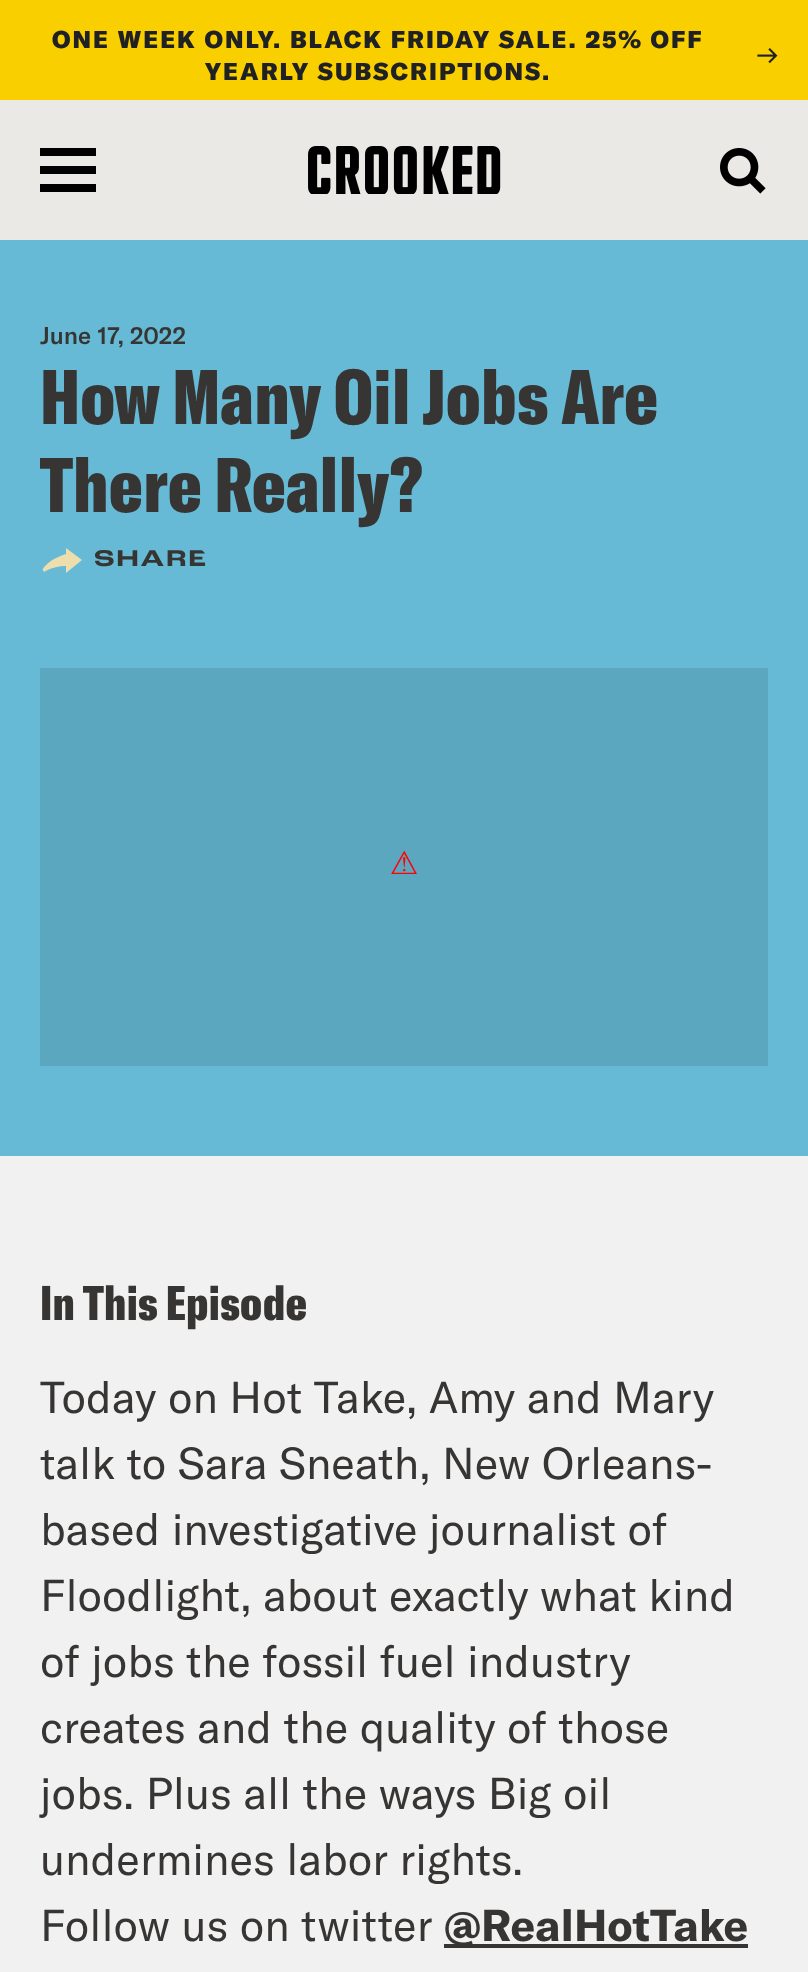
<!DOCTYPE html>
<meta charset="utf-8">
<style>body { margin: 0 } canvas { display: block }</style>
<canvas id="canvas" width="808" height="1972"></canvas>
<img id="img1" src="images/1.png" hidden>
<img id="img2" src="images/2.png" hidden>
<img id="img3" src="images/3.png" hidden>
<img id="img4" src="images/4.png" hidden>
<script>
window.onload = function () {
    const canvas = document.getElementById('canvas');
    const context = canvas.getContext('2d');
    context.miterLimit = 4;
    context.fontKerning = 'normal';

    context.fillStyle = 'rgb(241, 241, 241)';
    context.fillRect(0, 0, 808, 1972);
    context.fillStyle = 'rgb(249, 207, 0)';
    context.fillRect(0, 0, 808, 100);
    context.drawImage(document.getElementById('img1'), 757, 48, 21, 16);
    context.fillStyle = 'rgb(235, 233, 229)';
    context.fillRect(0, 100, 808, 140);
    context.fillStyle = 'rgb(0, 0, 0)';
    context.fillRect(40, 166, 56, 8);
    context.fillRect(40, 148, 56, 8);
    context.fillRect(40, 184, 56, 8);
    context.drawImage(document.getElementById('img2'), 308, 146, 193, 48);
    context.drawImage(document.getElementById('img3'), 720, 148, 46, 46);
    context.fillStyle = 'rgb(102, 186, 213)';
    context.fillRect(0, 240, 808, 916);
    context.fillStyle = 'rgb(236, 222, 173)';
    context.beginPath();
    context.moveTo(66, 548);
    context.lineTo(66, 554);
    context.bezierCurveTo(58.5, 556.5, 48, 560.5, 42.5, 569.5);
    context.lineTo(44, 572);
    context.bezierCurveTo(53.5, 566, 65, 566, 66, 566);
    context.lineTo(66, 573);
    context.lineTo(82, 560);
    context.closePath();
    context.fill();
    context.drawImage(document.getElementById('img4'), 40, 668, 728, 398);
    context.fillStyle = 'rgb(55, 53, 51)';
    context.fillRect(444, 1944, 304, 4);
    context.letterSpacing = '2px';
    context.font = '900 24px "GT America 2"';
    context.fillStyle = 'rgb(32, 33, 36)';
    context.fillText('ONE WEEK ONLY. BLACK FRIDAY SALE. 25% OFF', 52, 48);
    context.fillText('YEARLY SUBSCRIPTIONS.', 205, 80);
    context.letterSpacing = '0px';
    context.font = '500 24px GT America';
    context.fillStyle = 'rgb(55, 53, 51)';
    context.fillText('June 17, 2022', 40, 344);
    context.font = '900 76px GT America';
    context.fillText('How Many Oil Jobs Are', 40, 424);
    context.fillText('There Really?', 40, 512);
    context.save();
    context.beginPath();
    context.roundRect(40, 548, 168, 28, 14);
    context.clip();
    context.letterSpacing = '2px';
    context.font = 'bold 24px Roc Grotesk';
    context.fillText('SHARE', 94, 566);
    context.restore();
    context.font = '900 48px GT America';
    context.fillText('In This Episode', 40, 1320);
    context.font = '44px GT America';
    context.fillText('Today on Hot Take, Amy and Mary', 40, 1413);
    context.fillText('talk to Sara Sneath, New Orleans-', 40, 1479);
    context.fillText('based investigative journalist of', 40, 1545);
    context.fillText('Floodlight, about exactly what kind', 40, 1611);
    context.fillText('of jobs the fossil fuel industry', 40, 1677);
    context.fillText('creates and the quality of those', 40, 1743);
    context.fillText('jobs. Plus all the ways Big oil', 40, 1809);
    context.fillText('undermines labor rights.', 40, 1875);
    context.fillText('Follow us on twitter', 40, 1941);
    context.font = 'bold 44px GT America';
    context.fillText('@RealHotTake', 444, 1941);
};
</script>
